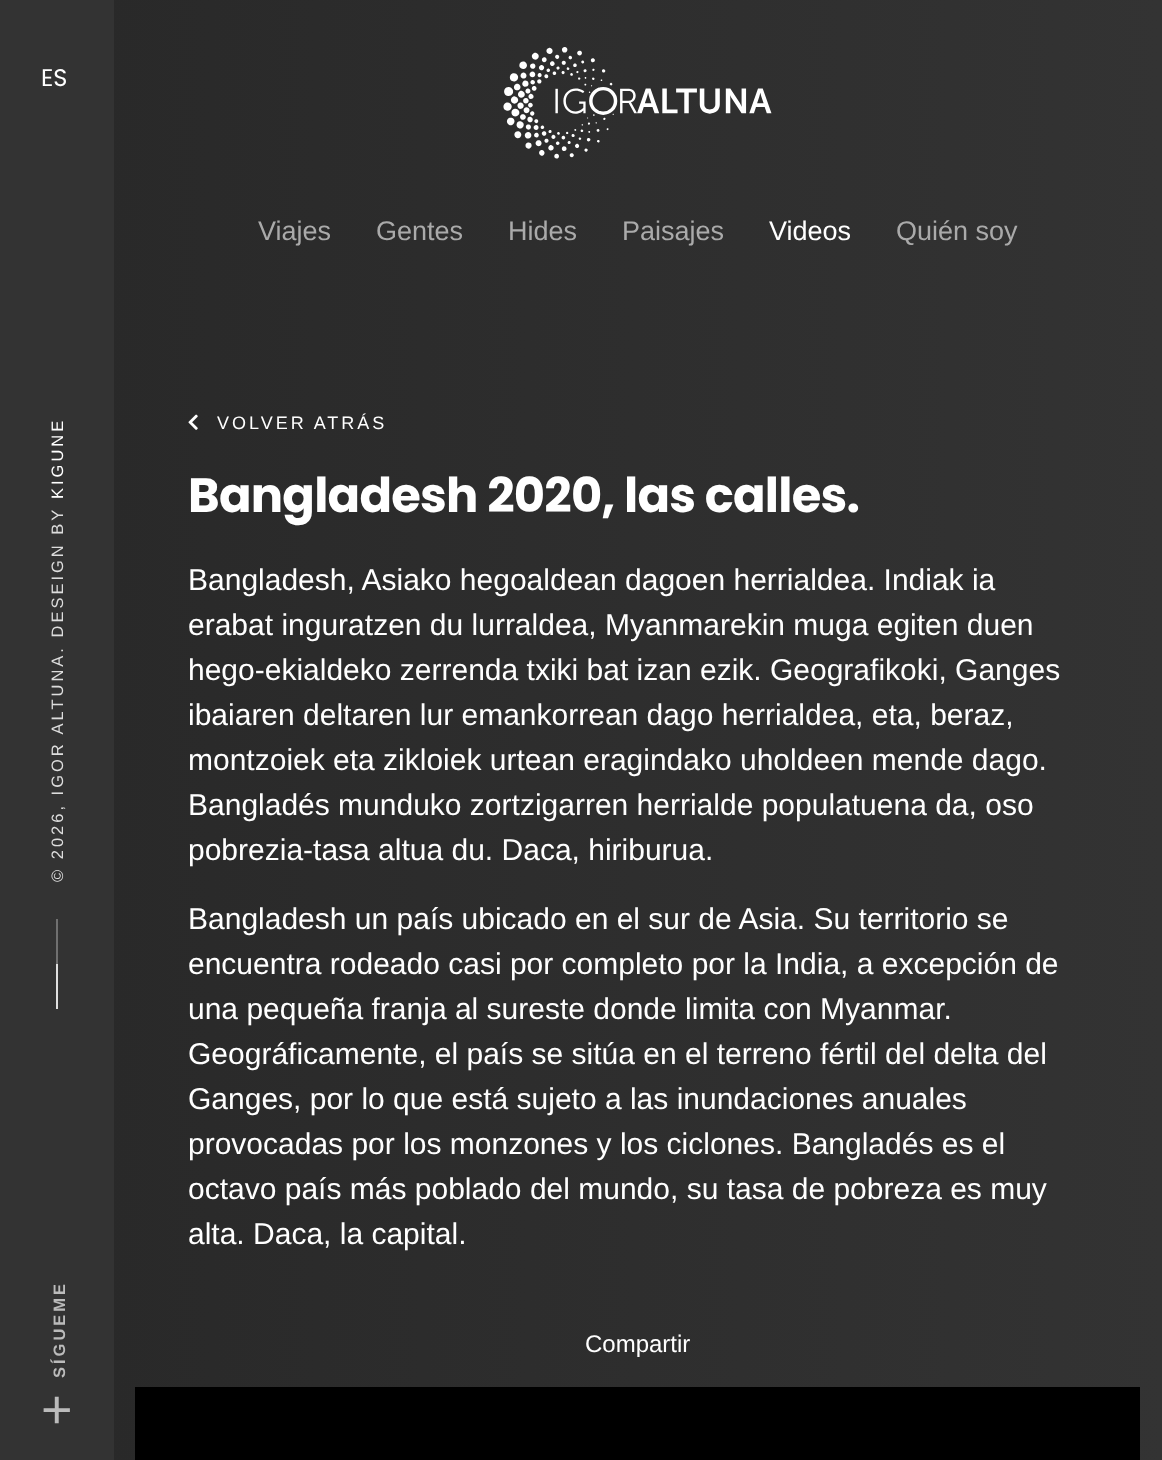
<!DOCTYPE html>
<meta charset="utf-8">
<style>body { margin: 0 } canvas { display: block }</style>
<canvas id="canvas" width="1162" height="1460"></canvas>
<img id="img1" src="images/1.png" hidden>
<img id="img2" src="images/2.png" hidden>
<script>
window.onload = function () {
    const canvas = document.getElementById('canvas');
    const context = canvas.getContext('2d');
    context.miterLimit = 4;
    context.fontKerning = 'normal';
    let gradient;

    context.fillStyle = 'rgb(255, 255, 255)';
    context.fillRect(0, 0, 1162, 1460);
    gradient = context.createLinearGradient(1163, 1369, 0, 1370);
    gradient.addColorStop(0, 'rgb(51, 51, 51)');
    gradient.addColorStop(1, 'rgb(40, 40, 40)');
    context.fillStyle = gradient;
    context.fillRect(114, 0, 1048, 1460);
    context.fillStyle = 'rgb(51, 51, 51)';
    context.fillRect(0, 0, 114, 1460);
    context.fillStyle = 'rgb(224, 224, 224)';
    context.fillRect(56, 964, 2, 45);
    context.fillStyle = 'rgb(112, 112, 112)';
    context.fillRect(56, 919, 2, 45);
    context.drawImage(document.getElementById('img1'), 503, 47, 269, 112);
    context.drawImage(document.getElementById('img2'), 188, 414, 10, 16);
    context.fillStyle = 'rgb(0, 0, 0)';
    context.fillRect(135, 1387, 1005, 73);
    context.font = '24px Poppins';
    context.fillStyle = 'rgb(255, 255, 255)';
    context.fillText('ES', 41, 86);
    context.letterSpacing = '3px';
    context.font = '16.5px Liberation Sans';
    context.save();
    context.translate(63, 499);
    context.rotate(-90 * Math.PI / 180);
    context.fillText('KIGUNE', 0, 0);
    context.restore();
    context.fillStyle = 'rgb(221, 221, 221)';
    context.save();
    context.translate(63, 882);
    context.rotate(-90 * Math.PI / 180);
    context.fillText('© 2026, IGOR ALTUNA. DESEIGN BY', 0, 0);
    context.restore();
    context.font = 'bold 16.5px Liberation Sans';
    context.fillStyle = 'rgb(187, 187, 187)';
    context.save();
    context.translate(65, 1378);
    context.rotate(-90 * Math.PI / 180);
    context.fillText('SÍGUEME', 0, 0);
    context.restore();
    context.letterSpacing = '0px';
    context.font = '54px Liberation Sans';
    context.fillText('+', 41, 1428);
    context.font = '27px Liberation Sans';
    context.fillStyle = 'rgb(170, 170, 170)';
    context.fillText('Viajes', 258, 240);
    context.fillText('Gentes', 376, 240);
    context.fillText('Hides', 508, 240);
    context.fillText('Paisajes', 622, 240);
    context.fillStyle = 'rgb(255, 255, 255)';
    context.fillText('Videos', 769, 240);
    context.fillStyle = 'rgb(170, 170, 170)';
    context.fillText('Quién soy', 896, 240);
    context.letterSpacing = '3px';
    context.font = '18px Liberation Sans';
    context.fillStyle = 'rgb(255, 255, 255)';
    context.fillText('VOLVER ATRÁS', 217, 429);
    context.letterSpacing = '-0.75px';
    context.font = 'bold 48px Poppins';
    context.fillText('Bangladesh 2020, las calles.', 188, 512);
    context.letterSpacing = '0px';
    context.font = '30px Liberation Sans';
    context.fillText('Bangladesh, Asiako hegoaldean dagoen herrialdea. Indiak ia', 188, 590);
    context.fillText('erabat inguratzen du lurraldea, Myanmarekin muga egiten duen', 188, 635);
    context.fillText('hego-ekialdeko zerrenda txiki bat izan ezik. Geografikoki, Ganges', 188, 680);
    context.fillText('ibaiaren deltaren lur emankorrean dago herrialdea, eta, beraz,', 188, 725);
    context.fillText('montzoiek eta zikloiek urtean eragindako uholdeen mende dago.', 188, 770);
    context.fillText('Bangladés munduko zortzigarren herrialde populatuena da, oso', 188, 815);
    context.fillText('pobrezia-tasa altua du. Daca, hiriburua.', 188, 860);
    context.fillText('Bangladesh un país ubicado en el sur de Asia. Su territorio se', 188, 929);
    context.fillText('encuentra rodeado casi por completo por la India, a excepción de', 188, 974);
    context.fillText('una pequeña franja al sureste donde limita con Myanmar.', 188, 1019);
    context.fillText('Geográficamente, el país se sitúa en el terreno fértil del delta del', 188, 1064);
    context.fillText('Ganges, por lo que está sujeto a las inundaciones anuales', 188, 1109);
    context.fillText('provocadas por los monzones y los ciclones. Bangladés es el', 188, 1154);
    context.fillText('octavo país más poblado del mundo, su tasa de pobreza es muy', 188, 1199);
    context.fillText('alta. Daca, la capital.', 188, 1244);
    context.font = '24px Liberation Sans';
    context.fillText('Compartir', 585, 1352);
};
</script>
